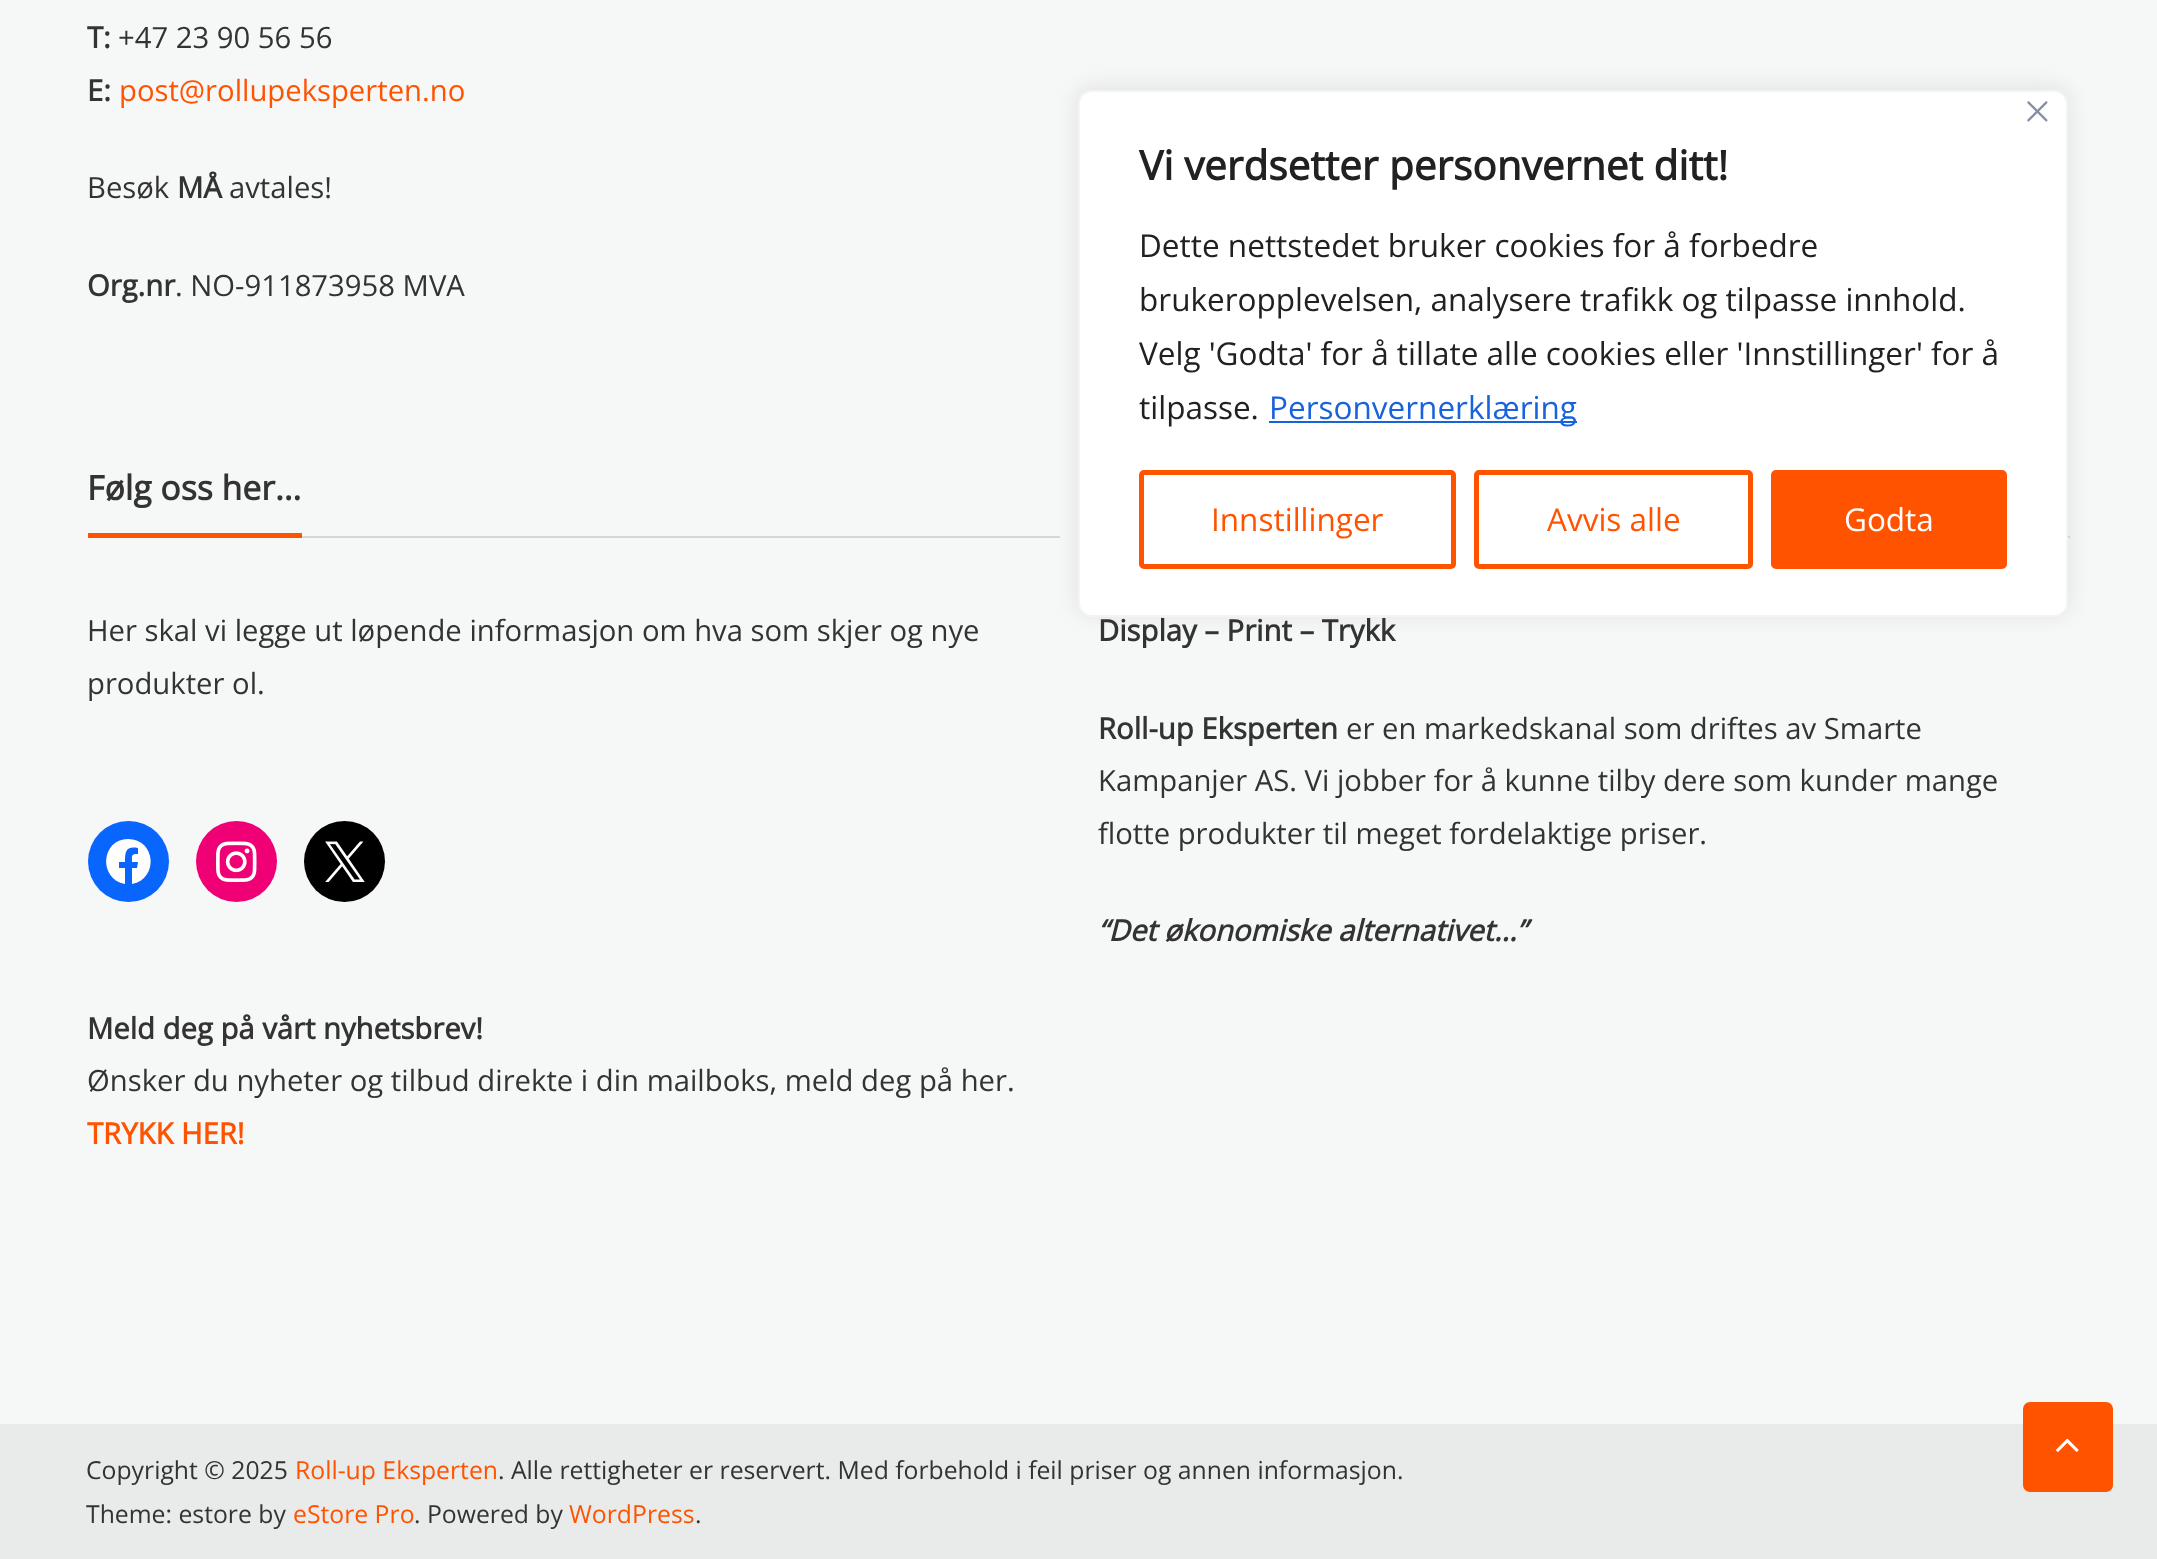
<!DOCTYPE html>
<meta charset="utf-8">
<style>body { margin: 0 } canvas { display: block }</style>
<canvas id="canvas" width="2157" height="1559"></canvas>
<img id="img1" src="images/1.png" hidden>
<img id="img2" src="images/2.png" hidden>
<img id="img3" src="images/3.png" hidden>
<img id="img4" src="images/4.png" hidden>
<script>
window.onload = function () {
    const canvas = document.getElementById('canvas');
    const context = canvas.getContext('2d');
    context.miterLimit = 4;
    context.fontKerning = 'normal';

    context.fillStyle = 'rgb(246, 247, 247)';
    context.fillRect(0, 0, 2157, 1559);
    context.fillStyle = 'rgb(214, 214, 214)';
    context.fillRect(302, 536, 758, 2);
    context.fillStyle = 'rgb(255, 83, 0)';
    context.fillRect(88, 533, 214, 5);
    context.fillStyle = 'rgb(8, 102, 255)';
    context.beginPath();
    context.arc(128.5, 861.5, 40.5, 0, 2 * Math.PI);
    context.fill();
    context.fillStyle = 'rgb(255, 255, 255)';
    context.beginPath();
    context.moveTo(128, 839);
    context.bezierCurveTo(101, 839, 98, 879, 125, 884);
    context.lineTo(125, 868);
    context.lineTo(119, 868);
    context.lineTo(119, 862);
    context.lineTo(125, 862);
    context.bezierCurveTo(125, 851, 126, 846, 138, 848);
    context.lineTo(138, 854);
    context.bezierCurveTo(131, 854, 132, 855, 132, 862);
    context.lineTo(138, 862);
    context.lineTo(137, 868);
    context.lineTo(132, 868);
    context.lineTo(132, 884);
    context.bezierCurveTo(159, 879, 156, 839, 128, 839);
    context.closePath();
    context.fill();
    context.fillStyle = 'rgb(240, 0, 117)';
    context.beginPath();
    context.arc(236.5, 861.5, 40.5, 0, 2 * Math.PI);
    context.fill();
    context.drawImage(document.getElementById('img1'), 216, 841, 41, 41);
    context.fillStyle = 'rgb(0, 0, 0)';
    context.beginPath();
    context.arc(344.5, 861.5, 40.5, 0, 2 * Math.PI);
    context.fill();
    context.drawImage(document.getElementById('img2'), 325, 841, 40, 41);
    context.fillStyle = 'rgb(214, 214, 214)';
    context.fillRect(2068, 536, 2, 2);
    context.fillStyle = 'rgb(233, 235, 235)';
    context.fillRect(0, 1424, 2157, 135);
    context.fillStyle = 'rgb(255, 83, 0)';
    context.beginPath();
    context.roundRect(2023, 1402, 90, 90, 7);
    context.fill();
    context.drawImage(document.getElementById('img3'), 2056, 1438, 23, 14);
    context.fillStyle = 'rgba(172, 171, 171, 0.3)';
    context.filter = 'blur(11px)';
    context.beginPath();
    context.roundRect(1078, 88, 990, 526, 14);
    context.fill();
    context.filter = 'none';
    context.fillStyle = 'rgb(255, 255, 255)';
    context.beginPath();
    context.roundRect(1079, 91, 988, 525, 13);
    context.fill();
    context.strokeStyle = 'rgb(244, 244, 244)';
    context.lineWidth = 2;
    context.stroke();
    context.drawImage(document.getElementById('img4'), 2027, 101, 21, 21);
    context.fillStyle = 'rgb(24, 99, 220)';
    context.fillRect(1269, 421, 308, 2);
    context.beginPath();
    context.roundRect(1141.5, 472.5, 312, 94, 2.5);
    context.strokeStyle = 'rgb(255, 83, 0)';
    context.lineWidth = 5;
    context.stroke();
    context.beginPath();
    context.roundRect(1476.5, 472.5, 274, 94, 2.5);
    context.stroke();
    context.fillStyle = 'rgb(255, 83, 0)';
    context.beginPath();
    context.roundRect(1773.5, 472.5, 231, 94, 2.5);
    context.fill();
    context.stroke();
    context.font = 'bold 29.25px Open Sans';
    context.fillStyle = 'rgb(51, 51, 51)';
    context.fillText('T:', 87, 48);
    context.font = '29.25px Open Sans';
    context.fillText('+47 23 90 56 56', 118, 48);
    context.font = 'bold 29.25px Open Sans';
    context.fillText('E:', 87, 101);
    context.font = '29.25px Open Sans';
    context.fillStyle = 'rgb(255, 83, 0)';
    context.fillText('post@rollupeksperten.no', 119, 101);
    context.fillStyle = 'rgb(51, 51, 51)';
    context.fillText('Besøk', 87, 198);
    context.font = 'bold 29.25px Open Sans';
    context.fillText('MÅ', 177, 198);
    context.font = '29.25px Open Sans';
    context.fillText('avtales!', 229, 198);
    context.font = 'bold 29.25px Open Sans';
    context.fillText('Org.nr', 87, 296);
    context.font = '29.25px Open Sans';
    context.fillText('. NO-911873958 MVA', 175, 296);
    context.font = 'bold 33.75px Open Sans';
    context.fillText('Følg oss her…', 87, 500);
    context.font = '29.25px Open Sans';
    context.fillText('Her skal vi legge ut løpende informasjon om hva som skjer og nye', 87, 641);
    context.fillText('produkter ol.', 87, 694);
    context.font = 'bold 29.25px Open Sans';
    context.fillText('Meld deg på vårt nyhetsbrev!', 87, 1039);
    context.font = '29.25px Open Sans';
    context.fillText('Ønsker du nyheter og tilbud direkte i din mailboks, meld deg på her.', 87, 1091);
    context.font = 'bold 29.25px Open Sans';
    context.fillStyle = 'rgb(255, 83, 0)';
    context.fillText('TRYKK HER!', 87, 1144);
    context.fillStyle = 'rgb(51, 51, 51)';
    context.fillText('Display – Print – Trykk', 1098, 641);
    context.fillText('Roll-up Eksperten', 1098, 739);
    context.font = '29.25px Open Sans';
    context.fillText('er en markedskanal som driftes av Smarte', 1346, 739);
    context.fillText('Kampanjer AS. Vi jobber for å kunne tilby dere som kunder mange', 1098, 791);
    context.fillText('flotte produkter til meget fordelaktige priser.', 1098, 844);
    context.font = 'italic bold 29.25px Open Sans';
    context.fillText('“Det økonomiske alternativet…”', 1098, 941);
    context.font = '24.75px Open Sans';
    context.fillText('Copyright © 2025', 86, 1479);
    context.fillStyle = 'rgb(255, 83, 0)';
    context.fillText('Roll-up Eksperten', 295, 1479);
    context.fillStyle = 'rgb(51, 51, 51)';
    context.fillText('. Alle rettigheter er reservert. Med forbehold i feil priser og annen informasjon.', 498, 1479);
    context.fillText('Theme: estore by', 86, 1523);
    context.fillStyle = 'rgb(255, 83, 0)';
    context.fillText('eStore Pro', 293, 1523);
    context.fillStyle = 'rgb(51, 51, 51)';
    context.fillText('. Powered by', 414, 1523);
    context.fillStyle = 'rgb(255, 83, 0)';
    context.fillText('WordPress', 569, 1523);
    context.fillStyle = 'rgb(51, 51, 51)';
    context.fillText('.', 695, 1523);
    context.font = 'bold 40.5px Open Sans';
    context.fillStyle = 'rgb(33, 33, 33)';
    context.fillText('Vi verdsetter personvernet ditt!', 1139, 180);
    context.font = '31.5px Open Sans';
    context.fillText('Dette nettstedet bruker cookies for å forbedre', 1139, 257);
    context.fillText('brukeropplevelsen, analysere trafikk og tilpasse innhold.', 1139, 311);
    context.fillText('Velg \'Godta\' for å tillate alle cookies eller \'Innstillinger\' for å', 1139, 365);
    context.fillText('tilpasse.', 1139, 419);
    context.fillStyle = 'rgb(24, 99, 220)';
    context.fillText('Personvernerklæring', 1269, 419);
    context.fillStyle = 'rgb(255, 83, 0)';
    context.fillText('Innstillinger', 1211, 531);
    context.fillText('Avvis alle', 1547, 531);
    context.fillStyle = 'rgb(255, 255, 255)';
    context.fillText('Godta', 1844, 531);
};
</script>
